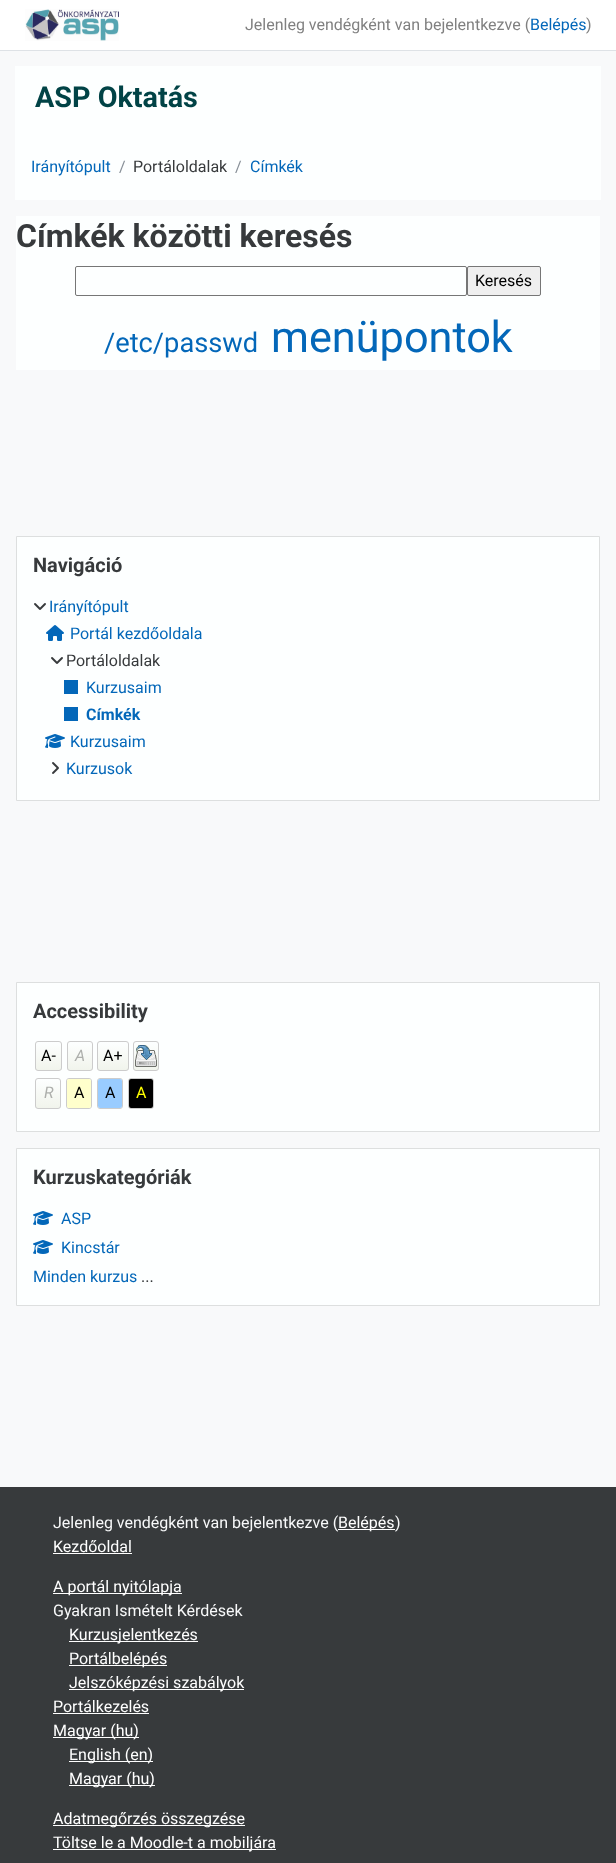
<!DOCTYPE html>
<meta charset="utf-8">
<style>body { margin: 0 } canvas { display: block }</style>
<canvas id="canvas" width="616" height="1863"></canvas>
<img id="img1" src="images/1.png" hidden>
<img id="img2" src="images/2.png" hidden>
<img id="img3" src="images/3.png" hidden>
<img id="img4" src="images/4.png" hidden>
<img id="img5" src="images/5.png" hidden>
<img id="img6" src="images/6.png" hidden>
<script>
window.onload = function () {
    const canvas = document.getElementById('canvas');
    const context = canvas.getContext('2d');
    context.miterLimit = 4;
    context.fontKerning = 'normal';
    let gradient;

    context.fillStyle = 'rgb(248, 249, 250)';
    context.fillRect(0, 0, 616, 1863);
    context.fillStyle = 'rgb(255, 255, 255)';
    context.fillRect(0, 0, 616, 50);
    context.fillStyle = 'rgb(222, 226, 230)';
    context.fillRect(0, 50, 616, 1);
    context.drawImage(document.getElementById('img1'), 25, 9, 94, 32);
    context.fillStyle = 'rgb(253, 255, 255)';
    context.fillRect(15, 66, 586, 134);
    context.fillRect(16, 216, 584, 154);
    context.beginPath();
    context.roundRect(75.5, 266.5, 391, 29, 1.5);
    context.strokeStyle = 'rgb(118, 118, 118)';
    context.stroke();
    context.fillStyle = 'rgb(239, 239, 239)';
    context.beginPath();
    context.roundRect(467.5, 266.5, 73, 29, 1.5);
    context.fill();
    context.stroke();
    context.fillStyle = 'rgb(253, 255, 255)';
    context.beginPath();
    context.rect(16.5, 536.5, 583, 264);
    context.fill();
    context.strokeStyle = 'rgb(221, 223, 223)';
    context.stroke();
    context.drawImage(document.getElementById('img2'), 34, 603, 12, 7);
    context.drawImage(document.getElementById('img3'), 46, 625, 18, 16);
    context.drawImage(document.getElementById('img2'), 51, 657, 12, 7);
    context.fillStyle = 'rgb(3, 103, 185)';
    context.fillRect(64, 680, 14, 14);
    context.fillRect(64, 707, 14, 14);
    context.drawImage(document.getElementById('img4'), 45, 734, 20, 14);
    context.drawImage(document.getElementById('img5'), 52, 762, 7, 12);
    context.fillStyle = 'rgb(253, 255, 255)';
    context.beginPath();
    context.rect(16.5, 982.5, 583, 149);
    context.fill();
    context.stroke();
    context.save();
    context.beginPath();
    context.roundRect(35, 1041, 27, 30, 3);
    context.clip();
    gradient = context.createLinearGradient(49, 1042, 49, 1070);
    gradient.addColorStop(0, 'rgb(253, 255, 255)');
    gradient.addColorStop(1, 'rgb(241, 244, 236)');
    context.fillStyle = gradient;
    context.fillRect(35, 1042, 27, 28);
    context.restore();
    context.beginPath();
    context.roundRect(35.5, 1041.5, 26, 29, 2.5);
    context.strokeStyle = 'rgb(204, 204, 204)';
    context.stroke();
    context.save();
    context.beginPath();
    context.roundRect(67, 1041, 26, 30, 3);
    context.clip();
    gradient = context.createLinearGradient(80, 1042, 80, 1070);
    gradient.addColorStop(0, 'rgb(253, 255, 255)');
    gradient.addColorStop(1, 'rgb(241, 244, 236)');
    context.fillStyle = gradient;
    context.fillRect(67, 1042, 26, 28);
    context.restore();
    context.beginPath();
    context.roundRect(67.5, 1041.5, 25, 29, 2.5);
    context.stroke();
    context.save();
    context.beginPath();
    context.roundRect(97, 1041, 32, 30, 3);
    context.clip();
    gradient = context.createLinearGradient(113, 1042, 113, 1070);
    gradient.addColorStop(0, 'rgb(253, 255, 255)');
    gradient.addColorStop(1, 'rgb(241, 244, 236)');
    context.fillStyle = gradient;
    context.fillRect(97, 1042, 32, 28);
    context.restore();
    context.beginPath();
    context.roundRect(97.5, 1041.5, 31, 29, 2.5);
    context.stroke();
    context.save();
    context.beginPath();
    context.roundRect(133, 1041, 26, 30, 3);
    context.clip();
    gradient = context.createLinearGradient(146, 1042, 146, 1070);
    gradient.addColorStop(0, 'rgb(253, 255, 255)');
    gradient.addColorStop(1, 'rgb(241, 244, 236)');
    context.fillStyle = gradient;
    context.fillRect(133, 1042, 26, 28);
    context.restore();
    context.beginPath();
    context.roundRect(133.5, 1041.5, 25, 29, 2.5);
    context.stroke();
    context.drawImage(document.getElementById('img6'), 135, 1045, 22, 22);
    context.save();
    context.beginPath();
    context.roundRect(35, 1078, 26, 31, 3);
    context.clip();
    gradient = context.createLinearGradient(48, 1079, 48, 1108);
    gradient.addColorStop(0, 'rgb(253, 255, 255)');
    gradient.addColorStop(1, 'rgb(241, 244, 236)');
    context.fillStyle = gradient;
    context.fillRect(35, 1079, 26, 29);
    context.restore();
    context.beginPath();
    context.roundRect(35.5, 1078.5, 25, 30, 2.5);
    context.stroke();
    context.beginPath();
    context.roundRect(66.5, 1078.5, 25, 30, 2.5);
    context.stroke();
    context.fillStyle = 'rgb(255, 255, 204)';
    context.beginPath();
    context.roundRect(67, 1079, 24, 29, 2);
    context.fill();
    context.beginPath();
    context.roundRect(97.5, 1078.5, 25, 30, 2.5);
    context.stroke();
    context.fillStyle = 'rgb(153, 204, 255)';
    context.beginPath();
    context.roundRect(98, 1079, 24, 29, 2);
    context.fill();
    context.beginPath();
    context.roundRect(128.5, 1078.5, 25, 30, 2.5);
    context.stroke();
    context.fillStyle = 'rgb(0, 0, 0)';
    context.beginPath();
    context.roundRect(129, 1079, 24, 29, 2);
    context.fill();
    context.fillStyle = 'rgb(253, 255, 255)';
    context.beginPath();
    context.rect(16.5, 1148.5, 583, 157);
    context.fill();
    context.strokeStyle = 'rgb(221, 223, 223)';
    context.stroke();
    context.drawImage(document.getElementById('img4'), 33, 1211, 20, 14);
    context.drawImage(document.getElementById('img4'), 33, 1240, 20, 14);
    context.fillStyle = 'rgb(55, 58, 60)';
    context.fillRect(0, 1487, 616, 376);
    context.fillStyle = 'rgb(255, 255, 255)';
    context.fillRect(338, 1529, 57, 1);
    context.fillRect(53, 1553, 79, 1);
    context.fillRect(53, 1593, 129, 1);
    context.fillRect(69, 1641, 129, 1);
    context.fillRect(69, 1665, 98, 1);
    context.fillRect(69, 1689, 175, 1);
    context.fillRect(53, 1713, 96, 1);
    context.fillRect(53, 1737, 86, 1);
    context.fillRect(69, 1761, 84, 1);
    context.fillRect(69, 1785, 86, 1);
    context.fillRect(53, 1825, 192, 1);
    context.fillRect(53, 1849, 223, 1);
    context.font = '16px Roboto';
    context.fillStyle = 'rgb(128, 128, 128)';
    context.fillText('Jelenleg vendégként van bejelentkezve (', 245, 30);
    context.fillStyle = 'rgb(3, 103, 185)';
    context.fillText('Belépés', 530, 30);
    context.fillStyle = 'rgb(128, 128, 128)';
    context.fillText(')', 586, 30);
    context.font = 'bold 28.75px Roboto';
    context.fillStyle = 'rgb(1, 67, 70)';
    context.fillText('ASP Oktatás', 35, 107);
    context.font = '16px Roboto';
    context.fillStyle = 'rgb(3, 103, 185)';
    context.fillText('Irányítópult', 31, 172);
    context.fillStyle = 'rgb(134, 142, 150)';
    context.fillText('/', 119, 172);
    context.fillStyle = 'rgb(55, 58, 60)';
    context.fillText('Portáloldalak', 133, 172);
    context.fillStyle = 'rgb(134, 142, 150)';
    context.fillText('/', 235, 172);
    context.fillStyle = 'rgb(3, 103, 185)';
    context.fillText('Címkék', 250, 172);
    context.font = 'bold 32px Roboto';
    context.fillStyle = 'rgb(55, 58, 60)';
    context.fillText('Címkék közötti keresés', 16, 247);
    context.font = '16px Roboto';
    context.fillStyle = 'rgb(0, 0, 0)';
    context.fillText('Keresés', 475, 286);
    context.font = '27.25px Roboto';
    context.fillStyle = 'rgb(3, 103, 185)';
    context.fillText('/etc/passwd', 104, 352);
    context.font = '43.25px Roboto';
    context.fillText('menüpontok', 271, 352);
    context.font = 'bold 20px Roboto';
    context.fillStyle = 'rgb(55, 58, 60)';
    context.fillText('Navigáció', 33, 572);
    context.font = '16px Roboto';
    context.fillStyle = 'rgb(3, 103, 185)';
    context.fillText('Irányítópult', 49, 612);
    context.fillText('Portál kezdőoldala', 70, 639);
    context.fillStyle = 'rgb(55, 58, 60)';
    context.fillText('Portáloldalak', 66, 666);
    context.fillStyle = 'rgb(3, 103, 185)';
    context.fillText('Kurzusaim', 86, 693);
    context.font = 'bold 16px Roboto';
    context.fillText('Címkék', 86, 720);
    context.font = '16px Roboto';
    context.fillText('Kurzusaim', 70, 747);
    context.fillText('Kurzusok', 66, 774);
    context.font = 'bold 20px Roboto';
    context.fillStyle = 'rgb(55, 58, 60)';
    context.fillText('Accessibility', 33, 1018);
    context.font = '16px Roboto';
    context.fillStyle = 'rgb(0, 0, 0)';
    context.fillText('A-', 41, 1061);
    context.font = 'italic 16px Roboto';
    context.fillStyle = 'rgb(173, 175, 172)';
    context.fillText('A', 75, 1061);
    context.font = '16px Roboto';
    context.fillStyle = 'rgb(0, 0, 0)';
    context.fillText('A+', 103, 1061);
    context.font = 'italic 16px Roboto';
    context.fillStyle = 'rgb(173, 175, 172)';
    context.fillText('R', 44, 1098);
    context.font = '16px Roboto';
    context.fillStyle = 'rgb(0, 0, 0)';
    context.fillText('A', 74, 1098);
    context.fillText('A', 105, 1098);
    context.fillStyle = 'rgb(255, 255, 0)';
    context.fillText('A', 136, 1098);
    context.font = 'bold 20px Roboto';
    context.fillStyle = 'rgb(55, 58, 60)';
    context.fillText('Kurzuskategóriák', 33, 1184);
    context.font = '16px Roboto';
    context.fillStyle = 'rgb(3, 103, 185)';
    context.fillText('ASP', 61, 1224);
    context.fillText('Kincstár', 61, 1253);
    context.fillText('Minden kurzus', 33, 1282);
    context.fillStyle = 'rgb(55, 58, 60)';
    context.fillText('...', 141, 1282);
    context.fillStyle = 'rgb(248, 249, 250)';
    context.fillText('Jelenleg vendégként van bejelentkezve (', 53, 1528);
    context.fillStyle = 'rgb(255, 255, 255)';
    context.fillText('Belépés', 338, 1528);
    context.fillStyle = 'rgb(248, 249, 250)';
    context.fillText(')', 395, 1528);
    context.fillStyle = 'rgb(255, 255, 255)';
    context.fillText('Kezdőoldal', 53, 1552);
    context.fillText('A portál nyitólapja', 53, 1592);
    context.fillStyle = 'rgb(248, 249, 250)';
    context.fillText('Gyakran Ismételt Kérdések', 53, 1616);
    context.fillStyle = 'rgb(255, 255, 255)';
    context.fillText('Kurzusjelentkezés', 69, 1640);
    context.fillText('Portálbelépés', 69, 1664);
    context.fillText('Jelszóképzési szabályok', 69, 1688);
    context.fillText('Portálkezelés', 53, 1712);
    context.fillText('Magyar (hu)', 53, 1736);
    context.fillText('English (en)', 69, 1760);
    context.fillText('Magyar (hu)', 69, 1784);
    context.fillText('Adatmegőrzés összegzése', 53, 1824);
    context.fillText('Töltse le a Moodle-t a mobiljára', 53, 1848);
};
</script>
